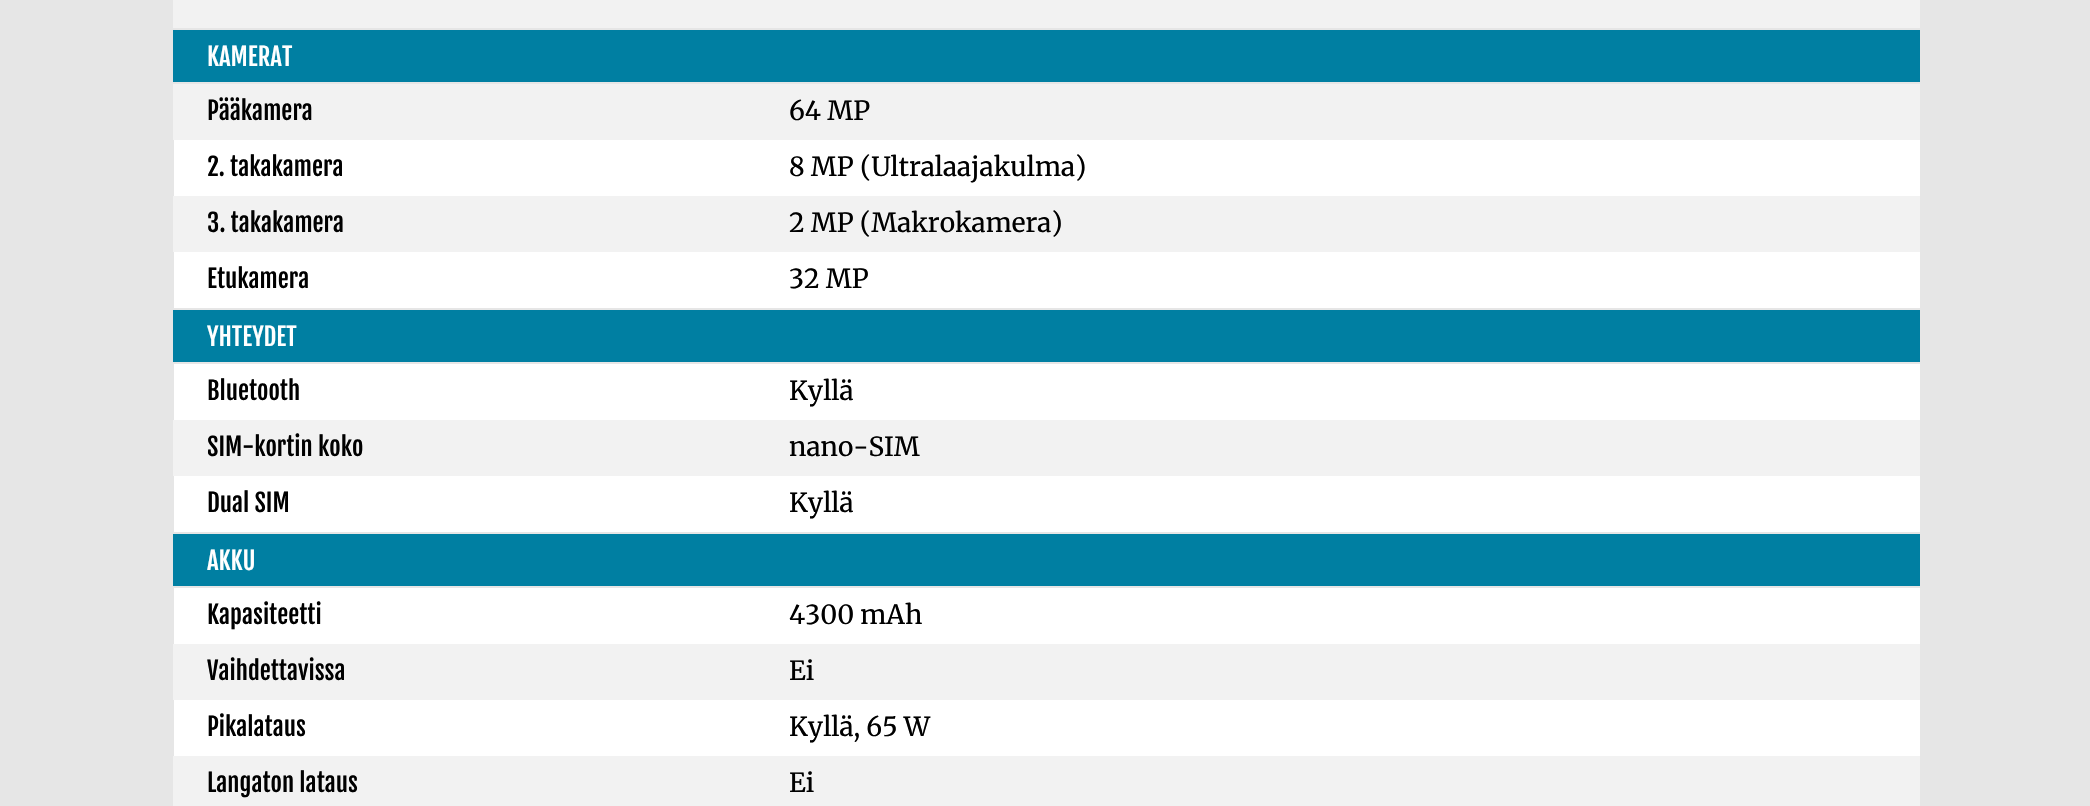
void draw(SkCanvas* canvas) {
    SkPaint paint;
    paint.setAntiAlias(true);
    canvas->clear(0xFFE6E6E6);
    paint.setColor(0xFFFFFFFF);
    canvas->drawRect(SkRect::MakeXYWH(174, 140, 1746, 616), paint);
    paint.setColor(0xFFF2F2F2);
    canvas->drawRect(SkRect::MakeXYWH(173, 0, 1747, 28), paint);
    paint.setColor(0xFF007FA2);
    canvas->drawRect(SkRect::MakeXYWH(173, 30, 1747, 52), paint);
    SkFont font1(fontMgr->matchFamilyStyle("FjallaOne", SkFontStyle::Normal()), 24.5f);
    font1.setSubpixel(true);
    paint.setColor(0xFFFFFFFF);
    canvas->drawString("KAMERAT", 207, 66, font1, paint);
    paint.setColor(0xFFF2F2F2);
    canvas->drawRect(SkRect::MakeXYWH(173, 84, 1747, 56), paint);
    paint.setColor(0xFF000000);
    canvas->drawString("Pääkamera", 207, 120, font1, paint);
    SkFont font2(fontMgr->matchFamilyStyle("Merriweather", SkFontStyle::Normal()), 26.25f);
    font2.setSubpixel(true);
    canvas->drawString("64 MP", 789, 120, font2, paint);
    canvas->drawString("2. takakamera", 207, 176, font1, paint);
    canvas->drawString("8 MP (Ultralaajakulma)", 789, 176, font2, paint);
    paint.setColor(0xFFF2F2F2);
    canvas->drawRect(SkRect::MakeXYWH(173, 196, 1747, 56), paint);
    paint.setColor(0xFF000000);
    canvas->drawString("3. takakamera", 207, 232, font1, paint);
    canvas->drawString("2 MP (Makrokamera)", 789, 232, font2, paint);
    canvas->drawString("Etukamera", 207, 288, font1, paint);
    canvas->drawString("32 MP", 789, 288, font2, paint);
    paint.setColor(0xFF007FA2);
    canvas->drawRect(SkRect::MakeXYWH(173, 310, 1747, 52), paint);
    paint.setColor(0xFFE6E6E6);
    canvas->drawRect(SkRect::MakeXYWH(173, 308, 1747, 2), paint);
    canvas->drawRect(SkRect::MakeXYWH(173, 362, 1747, 2), paint);
    paint.setColor(0xFFFFFFFF);
    canvas->drawString("YHTEYDET", 207, 346, font1, paint);
    paint.setColor(0xFF000000);
    canvas->drawString("Bluetooth", 207, 400, font1, paint);
    canvas->drawString("Kyllä", 789, 400, font2, paint);
    paint.setColor(0xFFF2F2F2);
    canvas->drawRect(SkRect::MakeXYWH(173, 420, 1747, 56), paint);
    paint.setColor(0xFF000000);
    canvas->drawString("SIM-kortin koko", 207, 456, font1, paint);
    canvas->drawString("nano-SIM", 789, 456, font2, paint);
    canvas->drawString("Dual SIM", 207, 512, font1, paint);
    canvas->drawString("Kyllä", 789, 512, font2, paint);
    paint.setColor(0xFF007FA2);
    canvas->drawRect(SkRect::MakeXYWH(173, 534, 1747, 52), paint);
    paint.setColor(0xFFE6E6E6);
    canvas->drawRect(SkRect::MakeXYWH(173, 532, 1747, 2), paint);
    canvas->drawRect(SkRect::MakeXYWH(173, 586, 1747, 2), paint);
    paint.setColor(0xFFFFFFFF);
    canvas->drawString("AKKU", 207, 570, font1, paint);
    paint.setColor(0xFF000000);
    canvas->drawString("Kapasiteetti", 207, 624, font1, paint);
    canvas->drawString("4300 mAh", 789, 624, font2, paint);
    paint.setColor(0xFFF2F2F2);
    canvas->drawRect(SkRect::MakeXYWH(173, 644, 1747, 56), paint);
    paint.setColor(0xFF000000);
    canvas->drawString("Vaihdettavissa", 207, 680, font1, paint);
    canvas->drawString("Ei", 789, 680, font2, paint);
    canvas->drawString("Pikalataus", 207, 736, font1, paint);
    canvas->drawString("Kyllä, 65 W", 789, 736, font2, paint);
    paint.setColor(0xFFF2F2F2);
    canvas->drawRect(SkRect::MakeXYWH(173, 756, 1747, 50), paint);
    paint.setColor(0xFF000000);
    canvas->drawString("Langaton lataus", 207, 792, font1, paint);
    canvas->drawString("Ei", 789, 792, font2, paint);
}
